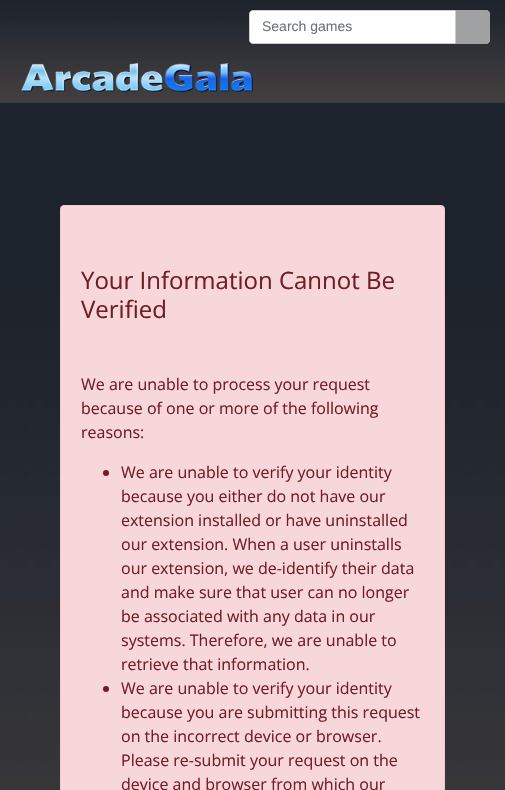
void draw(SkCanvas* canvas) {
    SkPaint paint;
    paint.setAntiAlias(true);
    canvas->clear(0xFFFFFFFF);
    canvas->drawImageRect(SkImages::DeferredFromEncodedData(SkData::MakeFromFileName("img1.png")), SkRect::MakeXYWH(0, 0, 505, 790), SkSamplingOptions());
    paint.setColor(0xFFFFFFFF);
    canvas->drawPath(SkPathBuilder().moveTo(253, 10.5f).lineTo(455.5f, 10.5f).lineTo(455.5f, 43.5f).lineTo(253, 43.5f).cubicTo(251, 43.5f, 249.5f, 42, 249.5f, 40).lineTo(249.5f, 14).cubicTo(249.5f, 12, 251, 10.5f, 253, 10.5f).close().detach(), paint);
    paint.setStyle(SkPaint::kStroke_Style);
    paint.setStrokeWidth(1);
    paint.setColor(0xFFCCCCCC);
    canvas->drawPath(SkPathBuilder().moveTo(253, 10.5f).lineTo(455.5f, 10.5f).lineTo(455.5f, 43.5f).lineTo(253, 43.5f).cubicTo(251, 43.5f, 249.5f, 42, 249.5f, 40).lineTo(249.5f, 14).cubicTo(249.5f, 12, 251, 10.5f, 253, 10.5f).close().detach(), paint);
    SkFont font1(fontMgr->matchFamilyStyle("Liberation Sans", SkFontStyle::Normal()), 14);
    font1.setSubpixel(true);
    paint.setStyle(SkPaint::kFill_Style);
    paint.setColor(0xFF6C757D);
    canvas->drawString("Search games", 262, 31, font1, paint);
    paint.setColor(0xFFA0A1A2);
    canvas->drawPath(SkPathBuilder().moveTo(456, 10).lineTo(486, 10).cubicTo(488, 10, 490, 12, 490, 14).lineTo(490, 40).cubicTo(490, 42, 488, 44, 486, 44).lineTo(456, 44).close().detach(), paint);
    canvas->drawPath(SkPathBuilder(SkPathFillType::kEvenOdd).moveTo(456, 10).lineTo(486, 10).cubicTo(488, 10, 490, 12, 490, 14).lineTo(490, 40).cubicTo(490, 42, 488, 44, 486, 44).lineTo(456, 44).close().moveTo(456, 11).lineTo(486, 11).cubicTo(487.5f, 11, 489, 12.5f, 489, 14).lineTo(489, 40).cubicTo(489, 41.5f, 487.5f, 43, 486, 43).lineTo(456, 43).close().detach(), paint);
    canvas->drawImageRect(SkImages::DeferredFromEncodedData(SkData::MakeFromFileName("img2.png")), SkRect::MakeXYWH(21, 63, 232, 29), SkSamplingOptions());
    paint.setColor(0xFFF8D7DA);
    canvas->drawRoundRect(SkRect::MakeXYWH(60.5f, 205.5f, 384, 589), 3.5f, 3.5f, paint);
    paint.setStyle(SkPaint::kStroke_Style);
    paint.setColor(0xFFF5C6CB);
    canvas->drawRoundRect(SkRect::MakeXYWH(60.5f, 205.5f, 384, 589), 3.5f, 3.5f, paint);
    SkFont font2(fontMgr->matchFamilyStyle("Open Sans", SkFontStyle::Normal()), 24);
    font2.setSubpixel(true);
    paint.setStyle(SkPaint::kFill_Style);
    paint.setColor(0xFF721C24);
    canvas->drawString("Your Information Cannot Be", 81, 289, font2, paint);
    canvas->drawString("Verified", 81, 318, font2, paint);
    SkFont font3(fontMgr->matchFamilyStyle("Open Sans", SkFontStyle::Normal()), 16);
    font3.setSubpixel(true);
    canvas->drawString("We are unable to process your request", 81, 390, font3, paint);
    canvas->drawString("because of one or more of the following", 81, 414, font3, paint);
    canvas->drawString("reasons:", 81, 438, font3, paint);
    canvas->drawCircle(106, 473, 3, paint);
    canvas->drawString("We are unable to verify your identity", 121, 478, font3, paint);
    canvas->drawString("because you either do not have our", 121, 502, font3, paint);
    canvas->drawString("extension installed or have uninstalled", 121, 526, font3, paint);
    canvas->drawString("our extension. When a user uninstalls", 121, 550, font3, paint);
    canvas->drawString("our extension, we de-identify their data", 121, 574, font3, paint);
    canvas->drawString("and make sure that user can no longer", 121, 598, font3, paint);
    canvas->drawString("be associated with any data in our", 121, 622, font3, paint);
    canvas->drawString("systems. Therefore, we are unable to", 121, 646, font3, paint);
    canvas->drawString("retrieve that information.", 121, 670, font3, paint);
    canvas->drawCircle(106, 689, 3, paint);
    canvas->drawString("We are unable to verify your identity", 121, 694, font3, paint);
    canvas->drawString("because you are submitting this request", 121, 718, font3, paint);
    canvas->drawString("on the incorrect device or browser.", 121, 742, font3, paint);
    canvas->drawString("Please re-submit your request on the", 121, 766, font3, paint);
    canvas->drawString("device and browser from which our", 121, 790, font3, paint);
}
